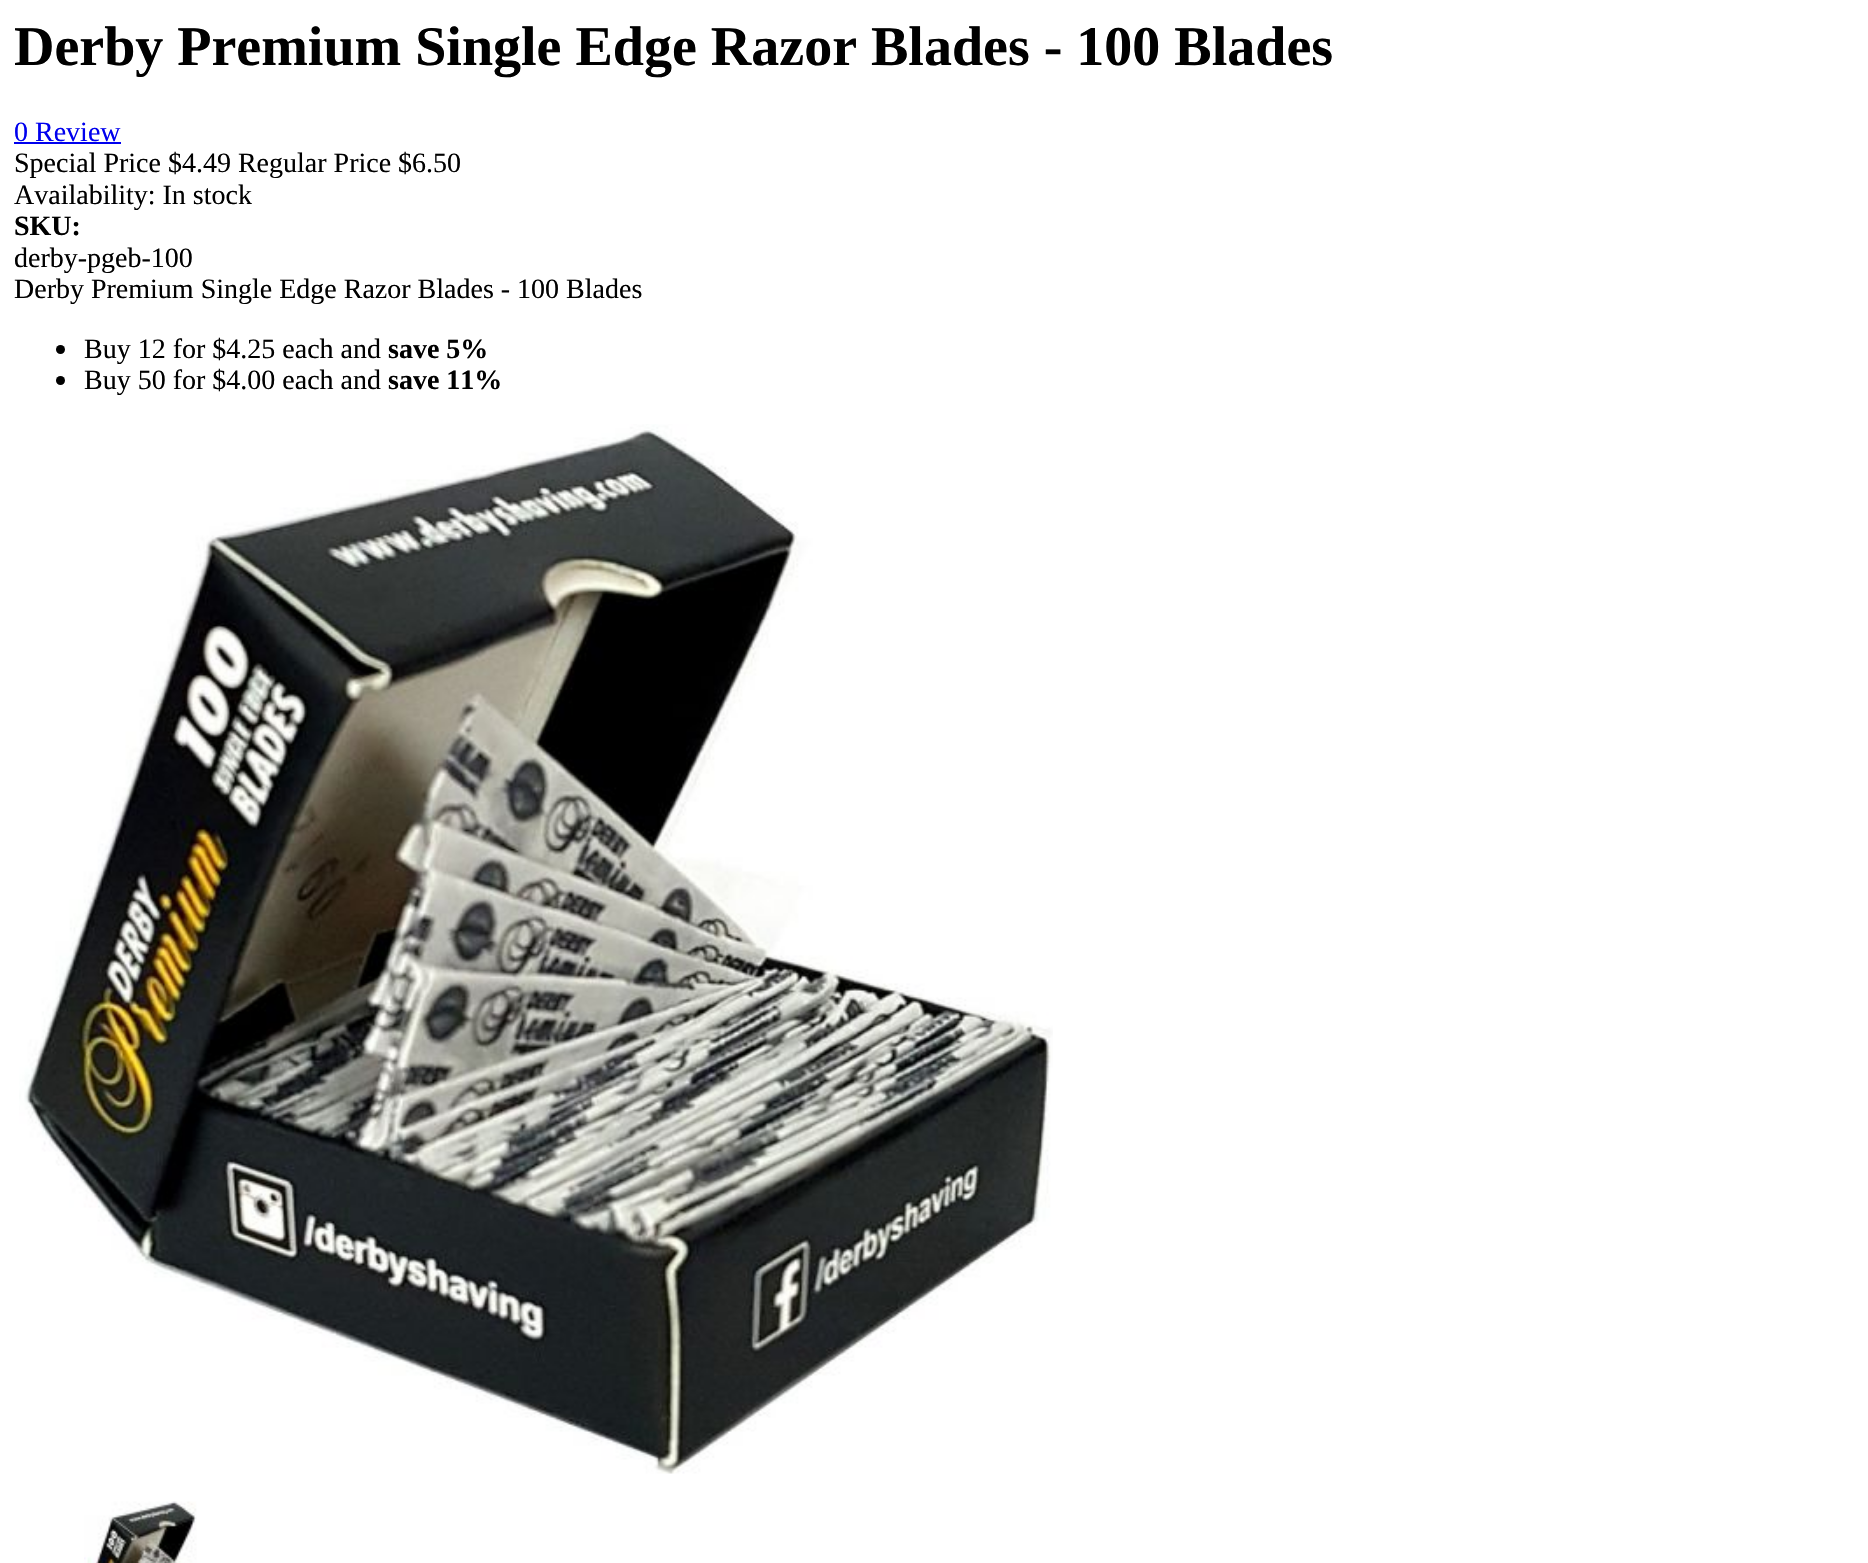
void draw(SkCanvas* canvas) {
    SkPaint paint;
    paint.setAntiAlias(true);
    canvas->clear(0xFFFFFFFF);
    SkFont font1(fontMgr->matchFamilyStyle("Liberation Serif", SkFontStyle::Bold()), 56);
    font1.setSubpixel(true);
    paint.setColor(0xFF000000);
    canvas->drawString("Derby Premium Single Edge Razor Blades - 100 Blades", 14, 65, font1, paint);
    SkFont font2(fontMgr->matchFamilyStyle("Liberation Serif", SkFontStyle::Normal()), 28);
    font2.setSubpixel(true);
    paint.setColor(0xFF0000EE);
    canvas->drawString("0 Review", 14, 141, font2, paint);
    canvas->drawRect(SkRect::MakeXYWH(14, 142, 107, 2), paint);
    paint.setColor(0xFF000000);
    canvas->drawString("Special Price $4.49 Regular Price $6.50", 14, 172, font2, paint);
    canvas->drawString("Availability: In stock", 14, 204, font2, paint);
    SkFont font3(fontMgr->matchFamilyStyle("Liberation Serif", SkFontStyle::Bold()), 28);
    font3.setSubpixel(true);
    canvas->drawString("SKU:", 14, 235, font3, paint);
    canvas->drawString("derby-pgeb-100", 14, 267, font2, paint);
    canvas->drawString("Derby Premium Single Edge Razor Blades - 100 Blades", 14, 298, font2, paint);
    canvas->drawCircle(60.5f, 349.5f, 4.5f, paint);
    canvas->drawString("Buy 12 for $4.25 each and", 84, 358, font2, paint);
    canvas->drawString("save 5%", 388, 358, font3, paint);
    canvas->drawCircle(60.5f, 380.5f, 4.5f, paint);
    canvas->drawString("Buy 50 for $4.00 each and", 84, 389, font2, paint);
    canvas->drawString("save 11%", 388, 389, font3, paint);
    canvas->drawImageRect(SkImages::DeferredFromEncodedData(SkData::MakeFromFileName("img1.png")), SkRect::MakeXYWH(19, 424, 1034, 1050), SkSamplingOptions());
    canvas->drawImageRect(SkImages::DeferredFromEncodedData(SkData::MakeFromFileName("img2.png")), SkRect::MakeXYWH(84, 1501, 113, 62), SkSamplingOptions());
}
